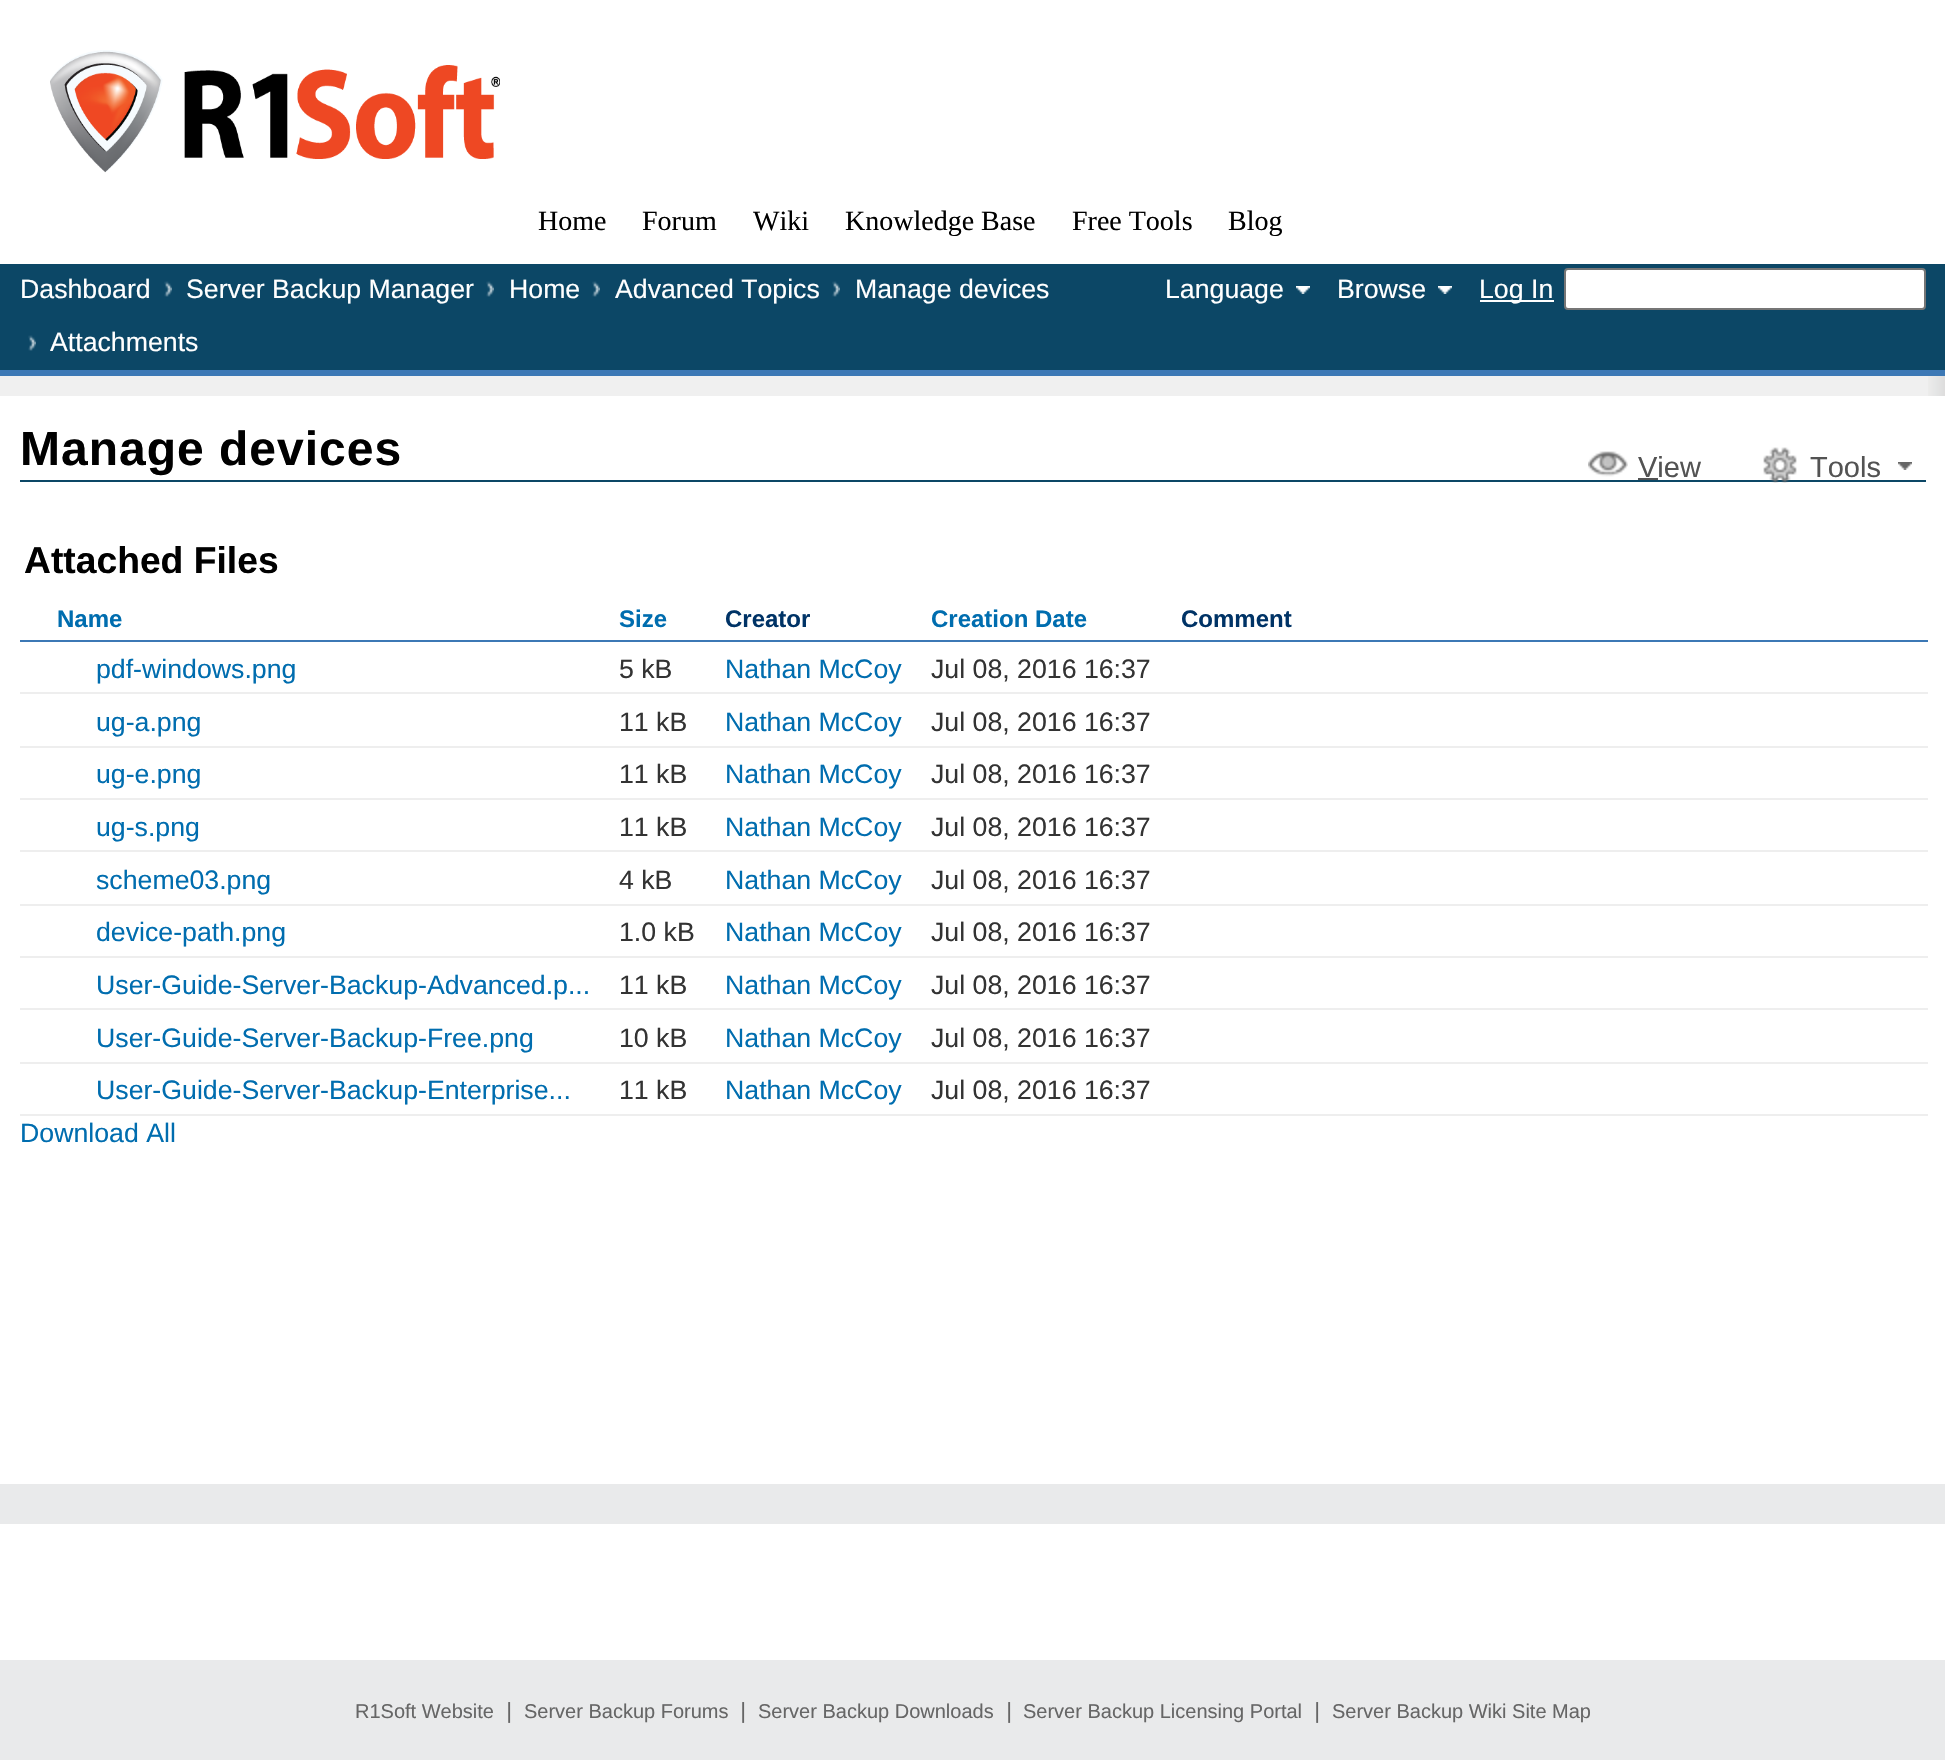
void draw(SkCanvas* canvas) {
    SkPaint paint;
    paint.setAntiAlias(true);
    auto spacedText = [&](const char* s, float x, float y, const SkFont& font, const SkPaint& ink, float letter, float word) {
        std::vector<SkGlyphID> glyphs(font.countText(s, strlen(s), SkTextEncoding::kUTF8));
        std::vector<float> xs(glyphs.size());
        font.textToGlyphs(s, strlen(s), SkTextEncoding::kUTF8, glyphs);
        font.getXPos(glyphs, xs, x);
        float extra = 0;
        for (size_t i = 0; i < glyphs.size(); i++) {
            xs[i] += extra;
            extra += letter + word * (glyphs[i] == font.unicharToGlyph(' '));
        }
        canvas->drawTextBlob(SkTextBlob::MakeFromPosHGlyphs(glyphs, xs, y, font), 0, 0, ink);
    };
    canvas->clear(0xFFFFFFFF);
    canvas->drawImageRect(SkImages::DeferredFromEncodedData(SkData::MakeFromFileName("img1.png")), SkRect::MakeXYWH(50, 50, 450, 123), SkSamplingOptions());
    SkFont font1(fontMgr->matchFamilyStyle("Liberation Serif", SkFontStyle::Normal()), 28);
    font1.setSubpixel(true);
    paint.setColor(0xFF000000);
    canvas->drawString("Home", 538, 230, font1, paint);
    canvas->drawString("Forum", 642, 230, font1, paint);
    canvas->drawString("Wiki", 753, 230, font1, paint);
    canvas->drawString("Knowledge Base", 845, 230, font1, paint);
    canvas->drawString("Free Tools", 1072, 230, font1, paint);
    canvas->drawString("Blog", 1228, 230, font1, paint);
    paint.setColor(0xFFE9EAEB);
    canvas->drawRect(SkRect::MakeXYWH(0, 1484, 1945, 40), paint);
    paint.setColor(0xFF0C4766);
    canvas->drawRect(SkRect::MakeXYWH(0, 264, 1945, 106), paint);
    paint.setColor(0xFF3C78B5);
    canvas->drawRect(SkRect::MakeXYWH(0, 370, 1945, 6), paint);
    SkFont font2(fontMgr->matchFamilyStyle("Liberation Sans", SkFontStyle::Normal()), 26.7f);
    font2.setSubpixel(true);
    paint.setColor(0xFFFFFFFF);
    canvas->drawString("Dashboard", 20, 298, font2, paint);
    canvas->drawImageRect(SkImages::DeferredFromEncodedData(SkData::MakeFromFileName("img2.png")), SkRect::MakeXYWH(164, 281, 8, 16), SkSamplingOptions());
    canvas->drawString("Server Backup Manager", 186, 298, font2, paint);
    canvas->drawImageRect(SkImages::DeferredFromEncodedData(SkData::MakeFromFileName("img2.png")), SkRect::MakeXYWH(486, 281, 8, 16), SkSamplingOptions());
    canvas->drawString("Home", 509, 298, font2, paint);
    canvas->drawImageRect(SkImages::DeferredFromEncodedData(SkData::MakeFromFileName("img2.png")), SkRect::MakeXYWH(592, 281, 8, 16), SkSamplingOptions());
    canvas->drawString("Advanced Topics", 615, 298, font2, paint);
    canvas->drawImageRect(SkImages::DeferredFromEncodedData(SkData::MakeFromFileName("img2.png")), SkRect::MakeXYWH(832, 281, 8, 16), SkSamplingOptions());
    canvas->drawString("Manage devices", 855, 298, font2, paint);
    canvas->drawImageRect(SkImages::DeferredFromEncodedData(SkData::MakeFromFileName("img2.png")), SkRect::MakeXYWH(28, 335, 8, 16), SkSamplingOptions());
    canvas->drawString("Attachments", 50, 351, font2, paint);
    canvas->drawImageRect(SkImages::DeferredFromEncodedData(SkData::MakeFromFileName("img3.png")), SkRect::MakeXYWH(1296, 286, 14, 8), SkSamplingOptions());
    canvas->drawString("Language", 1165, 298, font2, paint);
    canvas->drawImageRect(SkImages::DeferredFromEncodedData(SkData::MakeFromFileName("img3.png")), SkRect::MakeXYWH(1438, 286, 14, 8), SkSamplingOptions());
    canvas->drawString("Browse", 1337, 298, font2, paint);
    canvas->drawRect(SkRect::MakeXYWH(1480, 300, 74, 2), paint);
    canvas->drawString("Log In", 1479, 298, font2, paint);
    canvas->drawRoundRect(SkRect::MakeXYWH(1565, 269, 360, 40), 3, 3, paint);
    paint.setStyle(SkPaint::kStroke_Style);
    paint.setStrokeWidth(2);
    paint.setColor(0xFF767676);
    canvas->drawRoundRect(SkRect::MakeXYWH(1565, 269, 360, 40), 3, 3, paint);
    paint.setStyle(SkPaint::kFill_Style);
    paint.setColor(0xFFF0F0F0);
    canvas->drawRect(SkRect::MakeXYWH(0, 376, 1928, 20), paint);
    canvas->drawImageRect(SkImages::DeferredFromEncodedData(SkData::MakeFromFileName("img4.png")), SkRect::MakeXYWH(1928, 376, 17, 20), SkSamplingOptions());
    paint.setColor(0xFF0C4766);
    canvas->drawRect(SkRect::MakeXYWH(20, 480, 1906, 2), paint);
    SkFont font3(fontMgr->matchFamilyStyle("Liberation Sans", SkFontStyle::Bold()), 48);
    font3.setSubpixel(true);
    paint.setColor(0xFF000000);
    spacedText("Manage devices", 20, 465, font3, paint, 1, 0);
    canvas->drawImageRect(SkImages::DeferredFromEncodedData(SkData::MakeFromFileName("img5.png")), SkRect::MakeXYWH(1588, 451, 40, 26), SkSamplingOptions());
    SkFont font4(fontMgr->matchFamilyStyle("Liberation Sans", SkFontStyle::Normal()), 29);
    font4.setSubpixel(true);
    paint.setColor(0xFF535353);
    canvas->drawString("View", 1638, 477, font4, paint);
    canvas->drawRect(SkRect::MakeXYWH(1638, 478, 20, 2), paint);
    canvas->drawImageRect(SkImages::DeferredFromEncodedData(SkData::MakeFromFileName("img6.png")), SkRect::MakeXYWH(1898, 462, 14, 8), SkSamplingOptions());
    canvas->drawImageRect(SkImages::DeferredFromEncodedData(SkData::MakeFromFileName("img7.png")), SkRect::MakeXYWH(1763, 447, 34, 36), SkSamplingOptions());
    canvas->drawString("Tools", 1810, 477, font4, paint);
    SkFont font5(fontMgr->matchFamilyStyle("Liberation Sans", SkFontStyle::Bold()), 37.25f);
    font5.setSubpixel(true);
    paint.setColor(0xFF000000);
    canvas->drawString("Attached Files", 24, 573, font5, paint);
    SkFont font6(fontMgr->matchFamilyStyle("Liberation Sans", SkFontStyle::Bold()), 24);
    font6.setSubpixel(true);
    paint.setColor(0xFF006DAF);
    canvas->drawString("Name", 57, 627, font6, paint);
    canvas->drawString("Size", 619, 627, font6, paint);
    paint.setColor(0xFF003366);
    canvas->drawString("Creator", 725, 627, font6, paint);
    paint.setColor(0xFF006DAF);
    canvas->drawString("Creation Date", 931, 627, font6, paint);
    paint.setColor(0xFF003366);
    canvas->drawString("Comment", 1181, 627, font6, paint);
    paint.setColor(0xFF3C78B5);
    canvas->drawRect(SkRect::MakeXYWH(20, 640, 1908, 2), paint);
    paint.setColor(0xFF006DAF);
    canvas->drawString("pdf-windows.png", 96, 678, font2, paint);
    paint.setColor(0xFF333333);
    canvas->drawString("5 kB", 619, 678, font2, paint);
    paint.setColor(0xFF006DAF);
    canvas->drawString("Nathan McCoy", 725, 678, font2, paint);
    paint.setColor(0xFF333333);
    canvas->drawString("Jul 08, 2016 16:37", 931, 678, font2, paint);
    paint.setColor(0xFFEEEEEE);
    canvas->drawRect(SkRect::MakeXYWH(20, 692, 1908, 2), paint);
    paint.setColor(0xFF006DAF);
    canvas->drawString("ug-a.png", 96, 731, font2, paint);
    paint.setColor(0xFF333333);
    canvas->drawString("11 kB", 619, 731, font2, paint);
    paint.setColor(0xFF006DAF);
    canvas->drawString("Nathan McCoy", 725, 731, font2, paint);
    paint.setColor(0xFF333333);
    canvas->drawString("Jul 08, 2016 16:37", 931, 731, font2, paint);
    paint.setColor(0xFFEEEEEE);
    canvas->drawRect(SkRect::MakeXYWH(20, 746, 1908, 2), paint);
    paint.setColor(0xFF006DAF);
    canvas->drawString("ug-e.png", 96, 783, font2, paint);
    paint.setColor(0xFF333333);
    canvas->drawString("11 kB", 619, 783, font2, paint);
    paint.setColor(0xFF006DAF);
    canvas->drawString("Nathan McCoy", 725, 783, font2, paint);
    paint.setColor(0xFF333333);
    canvas->drawString("Jul 08, 2016 16:37", 931, 783, font2, paint);
    paint.setColor(0xFFEEEEEE);
    canvas->drawRect(SkRect::MakeXYWH(20, 798, 1908, 2), paint);
    paint.setColor(0xFF006DAF);
    canvas->drawString("ug-s.png", 96, 836, font2, paint);
    paint.setColor(0xFF333333);
    canvas->drawString("11 kB", 619, 836, font2, paint);
    paint.setColor(0xFF006DAF);
    canvas->drawString("Nathan McCoy", 725, 836, font2, paint);
    paint.setColor(0xFF333333);
    canvas->drawString("Jul 08, 2016 16:37", 931, 836, font2, paint);
    paint.setColor(0xFFEEEEEE);
    canvas->drawRect(SkRect::MakeXYWH(20, 850, 1908, 2), paint);
    paint.setColor(0xFF006DAF);
    canvas->drawString("scheme03.png", 96, 889, font2, paint);
    paint.setColor(0xFF333333);
    canvas->drawString("4 kB", 619, 889, font2, paint);
    paint.setColor(0xFF006DAF);
    canvas->drawString("Nathan McCoy", 725, 889, font2, paint);
    paint.setColor(0xFF333333);
    canvas->drawString("Jul 08, 2016 16:37", 931, 889, font2, paint);
    paint.setColor(0xFFEEEEEE);
    canvas->drawRect(SkRect::MakeXYWH(20, 904, 1908, 2), paint);
    paint.setColor(0xFF006DAF);
    canvas->drawString("device-path.png", 96, 941, font2, paint);
    paint.setColor(0xFF333333);
    canvas->drawString("1.0 kB", 619, 941, font2, paint);
    paint.setColor(0xFF006DAF);
    canvas->drawString("Nathan McCoy", 725, 941, font2, paint);
    paint.setColor(0xFF333333);
    canvas->drawString("Jul 08, 2016 16:37", 931, 941, font2, paint);
    paint.setColor(0xFFEEEEEE);
    canvas->drawRect(SkRect::MakeXYWH(20, 956, 1908, 2), paint);
    paint.setColor(0xFF006DAF);
    canvas->drawString("User-Guide-Server-Backup-Advanced.p...", 96, 994, font2, paint);
    paint.setColor(0xFF333333);
    canvas->drawString("11 kB", 619, 994, font2, paint);
    paint.setColor(0xFF006DAF);
    canvas->drawString("Nathan McCoy", 725, 994, font2, paint);
    paint.setColor(0xFF333333);
    canvas->drawString("Jul 08, 2016 16:37", 931, 994, font2, paint);
    paint.setColor(0xFFEEEEEE);
    canvas->drawRect(SkRect::MakeXYWH(20, 1008, 1908, 2), paint);
    paint.setColor(0xFF006DAF);
    canvas->drawString("User-Guide-Server-Backup-Free.png", 96, 1047, font2, paint);
    paint.setColor(0xFF333333);
    canvas->drawString("10 kB", 619, 1047, font2, paint);
    paint.setColor(0xFF006DAF);
    canvas->drawString("Nathan McCoy", 725, 1047, font2, paint);
    paint.setColor(0xFF333333);
    canvas->drawString("Jul 08, 2016 16:37", 931, 1047, font2, paint);
    paint.setColor(0xFFEEEEEE);
    canvas->drawRect(SkRect::MakeXYWH(20, 1062, 1908, 2), paint);
    paint.setColor(0xFF006DAF);
    canvas->drawString("User-Guide-Server-Backup-Enterprise...", 96, 1099, font2, paint);
    paint.setColor(0xFF333333);
    canvas->drawString("11 kB", 619, 1099, font2, paint);
    paint.setColor(0xFF006DAF);
    canvas->drawString("Nathan McCoy", 725, 1099, font2, paint);
    paint.setColor(0xFF333333);
    canvas->drawString("Jul 08, 2016 16:37", 931, 1099, font2, paint);
    paint.setColor(0xFFEEEEEE);
    canvas->drawRect(SkRect::MakeXYWH(20, 1114, 1908, 2), paint);
    paint.setColor(0xFF006DAF);
    canvas->drawString("Download All", 20, 1142, font2, paint);
    paint.setColor(0xFFE9EAEB);
    canvas->drawRect(SkRect::MakeXYWH(0, 1660, 1945, 100), paint);
    SkFont font7(fontMgr->matchFamilyStyle("Liberation Sans", SkFontStyle::Normal()), 20);
    font7.setSubpixel(true);
    paint.setColor(0xFF666666);
    canvas->drawString("R1Soft Website", 355, 1718, font7, paint);
    SkFont font8(fontMgr->matchFamilyStyle("Liberation Sans", SkFontStyle::Italic()), 22);
    font8.setSubpixel(true);
    canvas->drawString("|", 506, 1718, font8, paint);
    canvas->drawString("Server Backup Forums", 524, 1718, font7, paint);
    canvas->drawString("|", 740, 1718, font8, paint);
    canvas->drawString("Server Backup Downloads", 758, 1718, font7, paint);
    canvas->drawString("|", 1006, 1718, font8, paint);
    canvas->drawString("Server Backup Licensing Portal", 1023, 1718, font7, paint);
    canvas->drawString("|", 1314, 1718, font8, paint);
    canvas->drawString("Server Backup Wiki Site Map", 1332, 1718, font7, paint);
}
